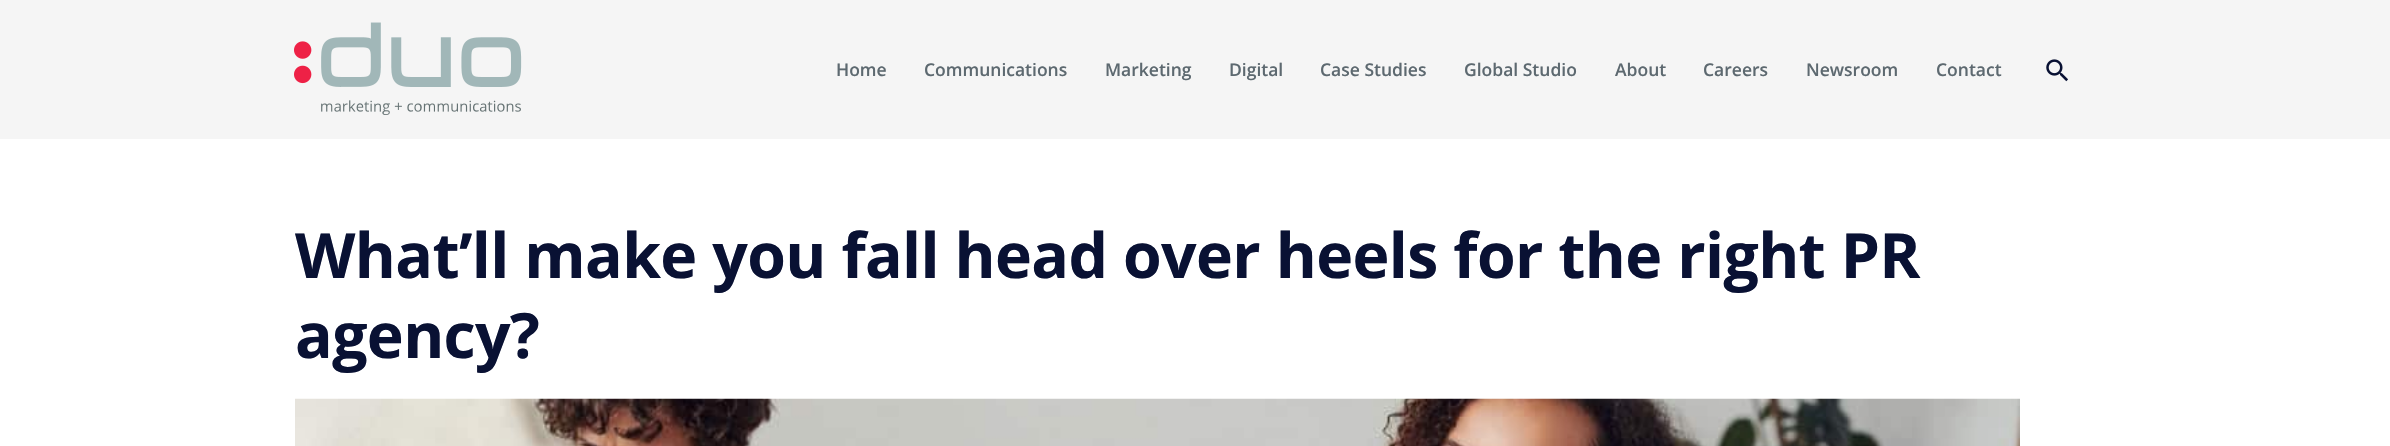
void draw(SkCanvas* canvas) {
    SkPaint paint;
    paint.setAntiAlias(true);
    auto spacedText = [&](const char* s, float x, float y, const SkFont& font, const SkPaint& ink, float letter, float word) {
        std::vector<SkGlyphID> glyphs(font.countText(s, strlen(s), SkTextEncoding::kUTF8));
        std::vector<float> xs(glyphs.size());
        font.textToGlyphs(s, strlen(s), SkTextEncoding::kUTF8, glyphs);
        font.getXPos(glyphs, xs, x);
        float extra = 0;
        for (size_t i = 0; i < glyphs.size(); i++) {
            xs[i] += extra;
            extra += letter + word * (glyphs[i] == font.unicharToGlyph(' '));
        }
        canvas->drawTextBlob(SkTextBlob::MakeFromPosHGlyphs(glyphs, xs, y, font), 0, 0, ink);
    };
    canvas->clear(0xFFFFFFFF);
    paint.setColor(0xFFF5F5F5);
    canvas->drawRect(SkRect::MakeXYWH(0, 0, 2390, 139), paint);
    canvas->drawImageRect(SkImages::DeferredFromEncodedData(SkData::MakeFromFileName("img1.png")), SkRect::MakeXYWH(294, 22, 228, 93), SkSamplingOptions());
    SkFont font1(fontMgr->matchFamilyStyle("Open Sans", SkFontStyle(600, SkFontStyle::kNormal_Width, SkFontStyle::kUpright_Slant)), 17.5f);
    font1.setSubpixel(true);
    paint.setColor(0xFF5D6970);
    canvas->drawString("Home", 836, 76, font1, paint);
    canvas->drawString("Communications", 924, 76, font1, paint);
    canvas->drawString("Marketing", 1105, 76, font1, paint);
    canvas->drawString("Digital", 1229, 76, font1, paint);
    canvas->drawString("Case Studies", 1320, 76, font1, paint);
    canvas->drawString("Global Studio", 1464, 76, font1, paint);
    canvas->drawString("About", 1615, 76, font1, paint);
    canvas->drawString("Careers", 1703, 76, font1, paint);
    canvas->drawString("Newsroom", 1806, 76, font1, paint);
    canvas->drawString("Contact", 1936, 76, font1, paint);
    canvas->drawImageRect(SkImages::DeferredFromEncodedData(SkData::MakeFromFileName("img2.png")), SkRect::MakeXYWH(2046, 59, 22, 23), SkSamplingOptions());
    SkFont font2(fontMgr->matchFamilyStyle("Open Sans", SkFontStyle::Bold()), 62.5f);
    font2.setSubpixel(true);
    paint.setColor(0xFF091133);
    spacedText("What’ll make you fall head over heels for the right PR", 295, 278, font2, paint, -0.62f, 0);
    spacedText("agency?", 295, 358, font2, paint, -0.62f, 0);
    canvas->drawImageRect(SkImages::DeferredFromEncodedData(SkData::MakeFromFileName("img3.png")), SkRect::MakeXYWH(295, 398, 1725, 48), SkSamplingOptions());
}
